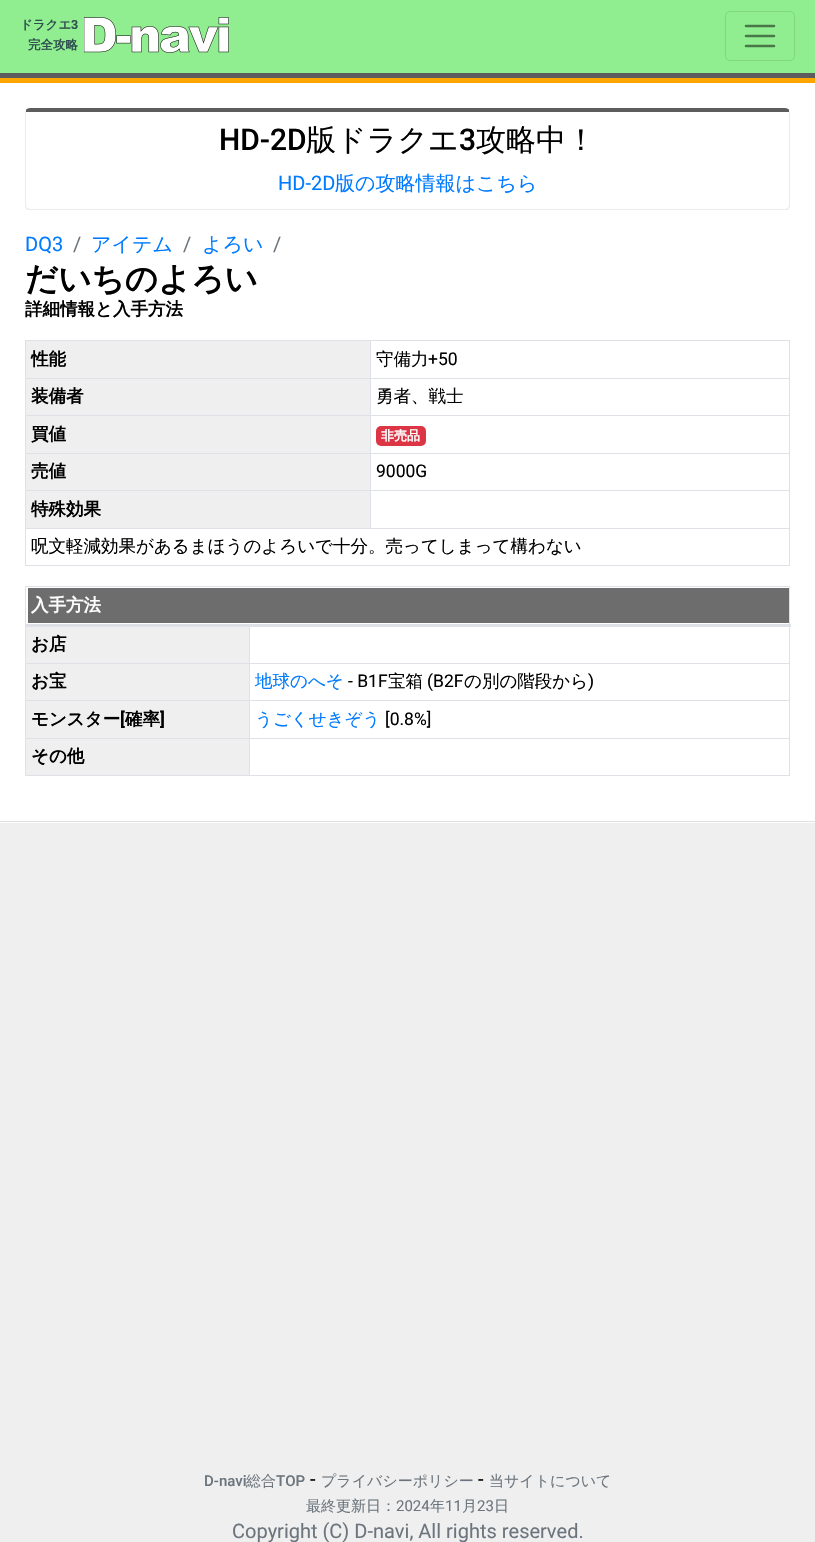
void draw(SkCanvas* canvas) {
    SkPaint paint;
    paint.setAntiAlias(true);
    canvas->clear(0xFFEFEFEF);
    paint.setColor(0xFF90EE90);
    canvas->drawRect(SkRect::MakeXYWH(0, 0, 815, 73), paint);
    paint.setColor(0xFF5D5D5D);
    canvas->drawRect(SkRect::MakeXYWH(0, 73, 815, 5), paint);
    SkFont font1(fontMgr->matchFamilyStyle("WenQuanYi Zen Hei", SkFontStyle::Bold()), 12.5f);
    font1.setSubpixel(true);
    paint.setColor(0xFF2F4F4F);
    canvas->drawString("ドラクエ", 20, 29, font1, paint);
    SkFont font2(fontMgr->matchFamilyStyle("Roboto", SkFontStyle::Bold()), 12.5f);
    font2.setSubpixel(true);
    canvas->drawString("3", 71, 29, font2, paint);
    canvas->drawString("完全攻略", 28, 49, font1, paint);
    canvas->drawImageRect(SkImages::DeferredFromEncodedData(SkData::MakeFromFileName("img1.png")), SkRect::MakeXYWH(84, 17, 145, 36), SkSamplingOptions());
    paint.setStyle(SkPaint::kStroke_Style);
    paint.setStrokeWidth(1);
    paint.setColor(0xFF82D682);
    canvas->drawRoundRect(SkRect::MakeXYWH(725.5f, 11.5f, 69, 49), 4.5f, 4.5f, paint);
    paint.setStrokeWidth(2.5f);
    paint.setStrokeCap(SkPaint::kRound_Cap);
    paint.setColor(0xFF487748);
    canvas->drawPath(SkPathBuilder().moveTo(746, 26).lineTo(774, 26).moveTo(746, 36).lineTo(774, 36).moveTo(746, 46).lineTo(774, 46).detach(), paint);
    paint.setStyle(SkPaint::kFill_Style);
    paint.setColor(0xFFFFFFFF);
    canvas->drawRect(SkRect::MakeXYWH(0, 83, 815, 740), paint);
    paint.setColor(0xFFFFA500);
    canvas->drawRect(SkRect::MakeXYWH(0, 78, 815, 5), paint);
    paint.setColor(0xFFDFDFDF);
    canvas->drawRect(SkRect::MakeXYWH(0, 821, 815, 1), paint);
    paint.setColor(0xFF5D5D5D);
    canvas->drawPath(SkPathBuilder().moveTo(30, 108).cubicTo(28, 108, 26, 109, 26, 110).lineTo(26, 112).lineTo(789, 112).lineTo(789, 110).cubicTo(789, 109, 787, 108, 785, 108).close().detach(), paint);
    paint.setColor(0xFFE9ECEF);
    canvas->drawPath(SkPathBuilder().moveTo(790, 205).lineTo(790, 112).lineTo(789, 110).lineTo(789, 112).lineTo(789, 205).lineTo(788, 208).lineTo(789, 209).cubicTo(790, 208, 790, 206, 790, 205).close().detach(), paint);
    canvas->drawPath(SkPathBuilder().moveTo(30, 210).lineTo(785, 210).cubicTo(786, 210, 788, 210, 789, 209).lineTo(788, 208).cubicTo(787, 208, 786, 209, 785, 209).lineTo(30, 209).cubicTo(29, 209, 28, 208, 27, 208).lineTo(26, 209).cubicTo(27, 210, 28, 210, 30, 210).close().detach(), paint);
    canvas->drawPath(SkPathBuilder().moveTo(25, 112).lineTo(25, 206).lineTo(26, 209).lineTo(27, 208).lineTo(26, 205).lineTo(26, 112).lineTo(26, 110).close().detach(), paint);
    SkFont font3(fontMgr->matchFamilyStyle("Roboto", SkFontStyle(500, SkFontStyle::kNormal_Width, SkFontStyle::kUpright_Slant)), 30);
    font3.setSubpixel(true);
    paint.setColor(0xFF000000);
    canvas->drawString("HD-2D", 219, 150, font3, paint);
    SkFont font4(fontMgr->matchFamilyStyle("WenQuanYi Zen Hei", SkFontStyle(500, SkFontStyle::kNormal_Width, SkFontStyle::kUpright_Slant)), 30);
    font4.setSubpixel(true);
    canvas->drawString("版ドラクエ", 306, 150, font4, paint);
    canvas->drawString("3", 459, 150, font3, paint);
    canvas->drawString("攻略中！", 476, 150, font4, paint);
    SkFont font5(fontMgr->matchFamilyStyle("Roboto", SkFontStyle::Normal()), 20);
    font5.setSubpixel(true);
    paint.setColor(0xFF007BFF);
    canvas->drawString("HD-2D", 278, 190, font5, paint);
    SkFont font6(fontMgr->matchFamilyStyle("WenQuanYi Zen Hei", SkFontStyle(500, SkFontStyle::kNormal_Width, SkFontStyle::kUpright_Slant)), 20);
    font6.setSubpixel(true);
    canvas->drawString("版の攻略情報はこちら", 335, 190, font6, paint);
    canvas->drawString("DQ3", 25, 251, font5, paint);
    paint.setColor(0xFF6C757D);
    canvas->drawString("/", 73, 251, font5, paint);
    paint.setColor(0xFF007BFF);
    canvas->drawString("アイテム", 91, 251, font6, paint);
    paint.setColor(0xFF6C757D);
    canvas->drawString("/", 183, 251, font5, paint);
    paint.setColor(0xFF007BFF);
    canvas->drawString("よろい", 202, 251, font6, paint);
    paint.setColor(0xFF6C757D);
    canvas->drawString("/", 273, 251, font5, paint);
    SkFont font7(fontMgr->matchFamilyStyle("WenQuanYi Zen Hei", SkFontStyle::Bold()), 32.5f);
    font7.setSubpixel(true);
    paint.setColor(0xFF000000);
    canvas->drawString("だいちのよろい", 25, 290, font7, paint);
    SkFont font8(fontMgr->matchFamilyStyle("WenQuanYi Zen Hei", SkFontStyle::Bold()), 17.5f);
    font8.setSubpixel(true);
    canvas->drawString("詳細情報と入手方法", 25, 315, font8, paint);
    paint.setColor(0xFFDEE2E6);
    canvas->drawRect(SkRect::MakeXYWH(25, 340, 765, 1), paint);
    canvas->drawRect(SkRect::MakeXYWH(789, 340, 1, 226), paint);
    canvas->drawRect(SkRect::MakeXYWH(25, 565, 765, 1), paint);
    canvas->drawRect(SkRect::MakeXYWH(25, 340, 1, 226), paint);
    paint.setColor(0xFFEFEFEF);
    canvas->drawRect(SkRect::MakeXYWH(26, 341, 344, 37), paint);
    paint.setColor(0xFF000000);
    canvas->drawString("性能", 31, 365, font8, paint);
    paint.setColor(0xFFDEE2E6);
    canvas->drawRect(SkRect::MakeXYWH(370, 378, 420, 1), paint);
    canvas->drawRect(SkRect::MakeXYWH(370, 415, 420, 1), paint);
    canvas->drawRect(SkRect::MakeXYWH(370, 453, 420, 1), paint);
    canvas->drawRect(SkRect::MakeXYWH(370, 490, 420, 1), paint);
    canvas->drawRect(SkRect::MakeXYWH(25, 528, 765, 1), paint);
    canvas->drawRect(SkRect::MakeXYWH(370, 490, 1, 39), paint);
    canvas->drawRect(SkRect::MakeXYWH(25, 490, 346, 1), paint);
    canvas->drawRect(SkRect::MakeXYWH(370, 453, 1, 38), paint);
    canvas->drawRect(SkRect::MakeXYWH(25, 453, 346, 1), paint);
    canvas->drawRect(SkRect::MakeXYWH(370, 415, 1, 39), paint);
    canvas->drawRect(SkRect::MakeXYWH(25, 415, 346, 1), paint);
    canvas->drawRect(SkRect::MakeXYWH(370, 378, 1, 38), paint);
    canvas->drawRect(SkRect::MakeXYWH(25, 378, 346, 1), paint);
    canvas->drawRect(SkRect::MakeXYWH(370, 340, 1, 39), paint);
    SkFont font9(fontMgr->matchFamilyStyle("WenQuanYi Zen Hei", SkFontStyle(500, SkFontStyle::kNormal_Width, SkFontStyle::kUpright_Slant)), 17.5f);
    font9.setSubpixel(true);
    paint.setColor(0xFF000000);
    canvas->drawString("守備力", 376, 365, font9, paint);
    SkFont font10(fontMgr->matchFamilyStyle("Roboto", SkFontStyle::Normal()), 17.5f);
    font10.setSubpixel(true);
    canvas->drawString("+50", 428, 365, font10, paint);
    paint.setColor(0xFFEFEFEF);
    canvas->drawRect(SkRect::MakeXYWH(26, 379, 344, 36), paint);
    paint.setColor(0xFF000000);
    canvas->drawString("装備者", 31, 402, font8, paint);
    canvas->drawString("勇者、戦士", 376, 402, font9, paint);
    paint.setColor(0xFFEFEFEF);
    canvas->drawRect(SkRect::MakeXYWH(26, 416, 344, 37), paint);
    paint.setColor(0xFF000000);
    canvas->drawString("買値", 31, 440, font8, paint);
    paint.setColor(0xFFDC3545);
    canvas->drawRoundRect(SkRect::MakeXYWH(376, 426, 50, 20), 5, 5, paint);
    SkFont font11(fontMgr->matchFamilyStyle("WenQuanYi Zen Hei", SkFontStyle::Bold()), 13);
    font11.setSubpixel(true);
    paint.setColor(0xFFFFFFFF);
    canvas->drawString("非売品", 381, 440, font11, paint);
    paint.setColor(0xFFEFEFEF);
    canvas->drawRect(SkRect::MakeXYWH(26, 454, 344, 36), paint);
    paint.setColor(0xFF000000);
    canvas->drawString("売値", 31, 477, font8, paint);
    canvas->drawString("9000G", 376, 477, font10, paint);
    paint.setColor(0xFFEFEFEF);
    canvas->drawRect(SkRect::MakeXYWH(26, 491, 344, 37), paint);
    paint.setColor(0xFF000000);
    canvas->drawString("特殊効果", 31, 515, font8, paint);
    canvas->drawString("呪文軽減効果があるまほうのよろいで十分。売ってしまって構わない", 31, 552, font9, paint);
    paint.setColor(0xFFDEE2E6);
    canvas->drawRect(SkRect::MakeXYWH(25, 586, 765, 1), paint);
    canvas->drawRect(SkRect::MakeXYWH(789, 586, 1, 190), paint);
    canvas->drawRect(SkRect::MakeXYWH(25, 775, 765, 1), paint);
    canvas->drawRect(SkRect::MakeXYWH(25, 586, 1, 190), paint);
    paint.setColor(0xFF6D6D6D);
    canvas->drawRect(SkRect::MakeXYWH(28, 588, 761, 35), paint);
    paint.setColor(0xFFDEE2E6);
    canvas->drawRect(SkRect::MakeXYWH(249, 663, 541, 1), paint);
    canvas->drawRect(SkRect::MakeXYWH(249, 700, 541, 1), paint);
    canvas->drawRect(SkRect::MakeXYWH(249, 738, 541, 1), paint);
    canvas->drawRect(SkRect::MakeXYWH(249, 738, 1, 38), paint);
    canvas->drawRect(SkRect::MakeXYWH(25, 738, 225, 1), paint);
    canvas->drawRect(SkRect::MakeXYWH(249, 700, 1, 39), paint);
    canvas->drawRect(SkRect::MakeXYWH(25, 700, 225, 1), paint);
    canvas->drawRect(SkRect::MakeXYWH(249, 663, 1, 38), paint);
    canvas->drawRect(SkRect::MakeXYWH(25, 663, 225, 1), paint);
    canvas->drawRect(SkRect::MakeXYWH(249, 624, 1, 40), paint);
    canvas->drawRect(SkRect::MakeXYWH(25, 624, 766, 3), paint);
    paint.setColor(0xFFFFFFFF);
    canvas->drawString("入手方法", 31, 611, font8, paint);
    paint.setColor(0xFFEFEFEF);
    canvas->drawRect(SkRect::MakeXYWH(26, 627, 223, 36), paint);
    paint.setColor(0xFF000000);
    canvas->drawString("お店", 31, 650, font8, paint);
    paint.setColor(0xFFEFEFEF);
    canvas->drawRect(SkRect::MakeXYWH(26, 664, 223, 36), paint);
    paint.setColor(0xFF000000);
    canvas->drawString("お宝", 31, 687, font8, paint);
    paint.setColor(0xFF007BFF);
    canvas->drawString("地球のへそ", 255, 687, font9, paint);
    paint.setColor(0xFF000000);
    canvas->drawString("- B1F", 348, 687, font10, paint);
    canvas->drawString("宝箱", 388, 687, font9, paint);
    canvas->drawString("(B2F", 427, 687, font10, paint);
    canvas->drawString("の別の階段から", 464, 687, font9, paint);
    canvas->drawString(")", 588, 687, font10, paint);
    paint.setColor(0xFFEFEFEF);
    canvas->drawRect(SkRect::MakeXYWH(26, 701, 223, 37), paint);
    paint.setColor(0xFF000000);
    canvas->drawString("モンスター", 31, 725, font8, paint);
    SkFont font12(fontMgr->matchFamilyStyle("Roboto", SkFontStyle::Bold()), 17.5f);
    font12.setSubpixel(true);
    canvas->drawString("[", 120, 725, font12, paint);
    canvas->drawString("確率", 125, 725, font8, paint);
    canvas->drawString("]", 160, 725, font12, paint);
    paint.setColor(0xFF007BFF);
    canvas->drawString("うごくせきぞう", 255, 725, font9, paint);
    paint.setColor(0xFF000000);
    canvas->drawString("[0.8%]", 385, 725, font10, paint);
    paint.setColor(0xFFEFEFEF);
    canvas->drawRect(SkRect::MakeXYWH(26, 739, 223, 36), paint);
    paint.setColor(0xFF000000);
    canvas->drawString("その他", 31, 762, font8, paint);
    SkFont font13(fontMgr->matchFamilyStyle("Roboto", SkFontStyle(500, SkFontStyle::kNormal_Width, SkFontStyle::kUpright_Slant)), 15);
    font13.setSubpixel(true);
    paint.setColor(0xFF6C757D);
    canvas->drawString("D-navi", 204, 1486, font13, paint);
    SkFont font14(fontMgr->matchFamilyStyle("WenQuanYi Zen Hei", SkFontStyle(500, SkFontStyle::kNormal_Width, SkFontStyle::kUpright_Slant)), 15);
    font14.setSubpixel(true);
    canvas->drawString("総合", 246, 1486, font14, paint);
    canvas->drawString("TOP", 276, 1486, font13, paint);
    paint.setColor(0xFF000000);
    canvas->drawString("-", 310, 1486, font5, paint);
    paint.setColor(0xFF6C757D);
    canvas->drawString("プライバシーポリシー", 321, 1486, font14, paint);
    paint.setColor(0xFF000000);
    canvas->drawString("-", 478, 1486, font5, paint);
    paint.setColor(0xFF6C757D);
    canvas->drawString("当サイトについて", 489, 1486, font14, paint);
    canvas->drawString("最終更新日：", 306, 1511, font14, paint);
    SkFont font15(fontMgr->matchFamilyStyle("Roboto", SkFontStyle::Normal()), 15);
    font15.setSubpixel(true);
    canvas->drawString("2024", 396, 1511, font15, paint);
    canvas->drawString("年", 430, 1511, font14, paint);
    canvas->drawString("11", 445, 1511, font15, paint);
    canvas->drawString("月", 462, 1511, font14, paint);
    canvas->drawString("23", 477, 1511, font15, paint);
    canvas->drawString("日", 494, 1511, font14, paint);
    canvas->drawString("Copyright (C) D-navi, All rights reserved.", 232, 1538, font5, paint);
}
